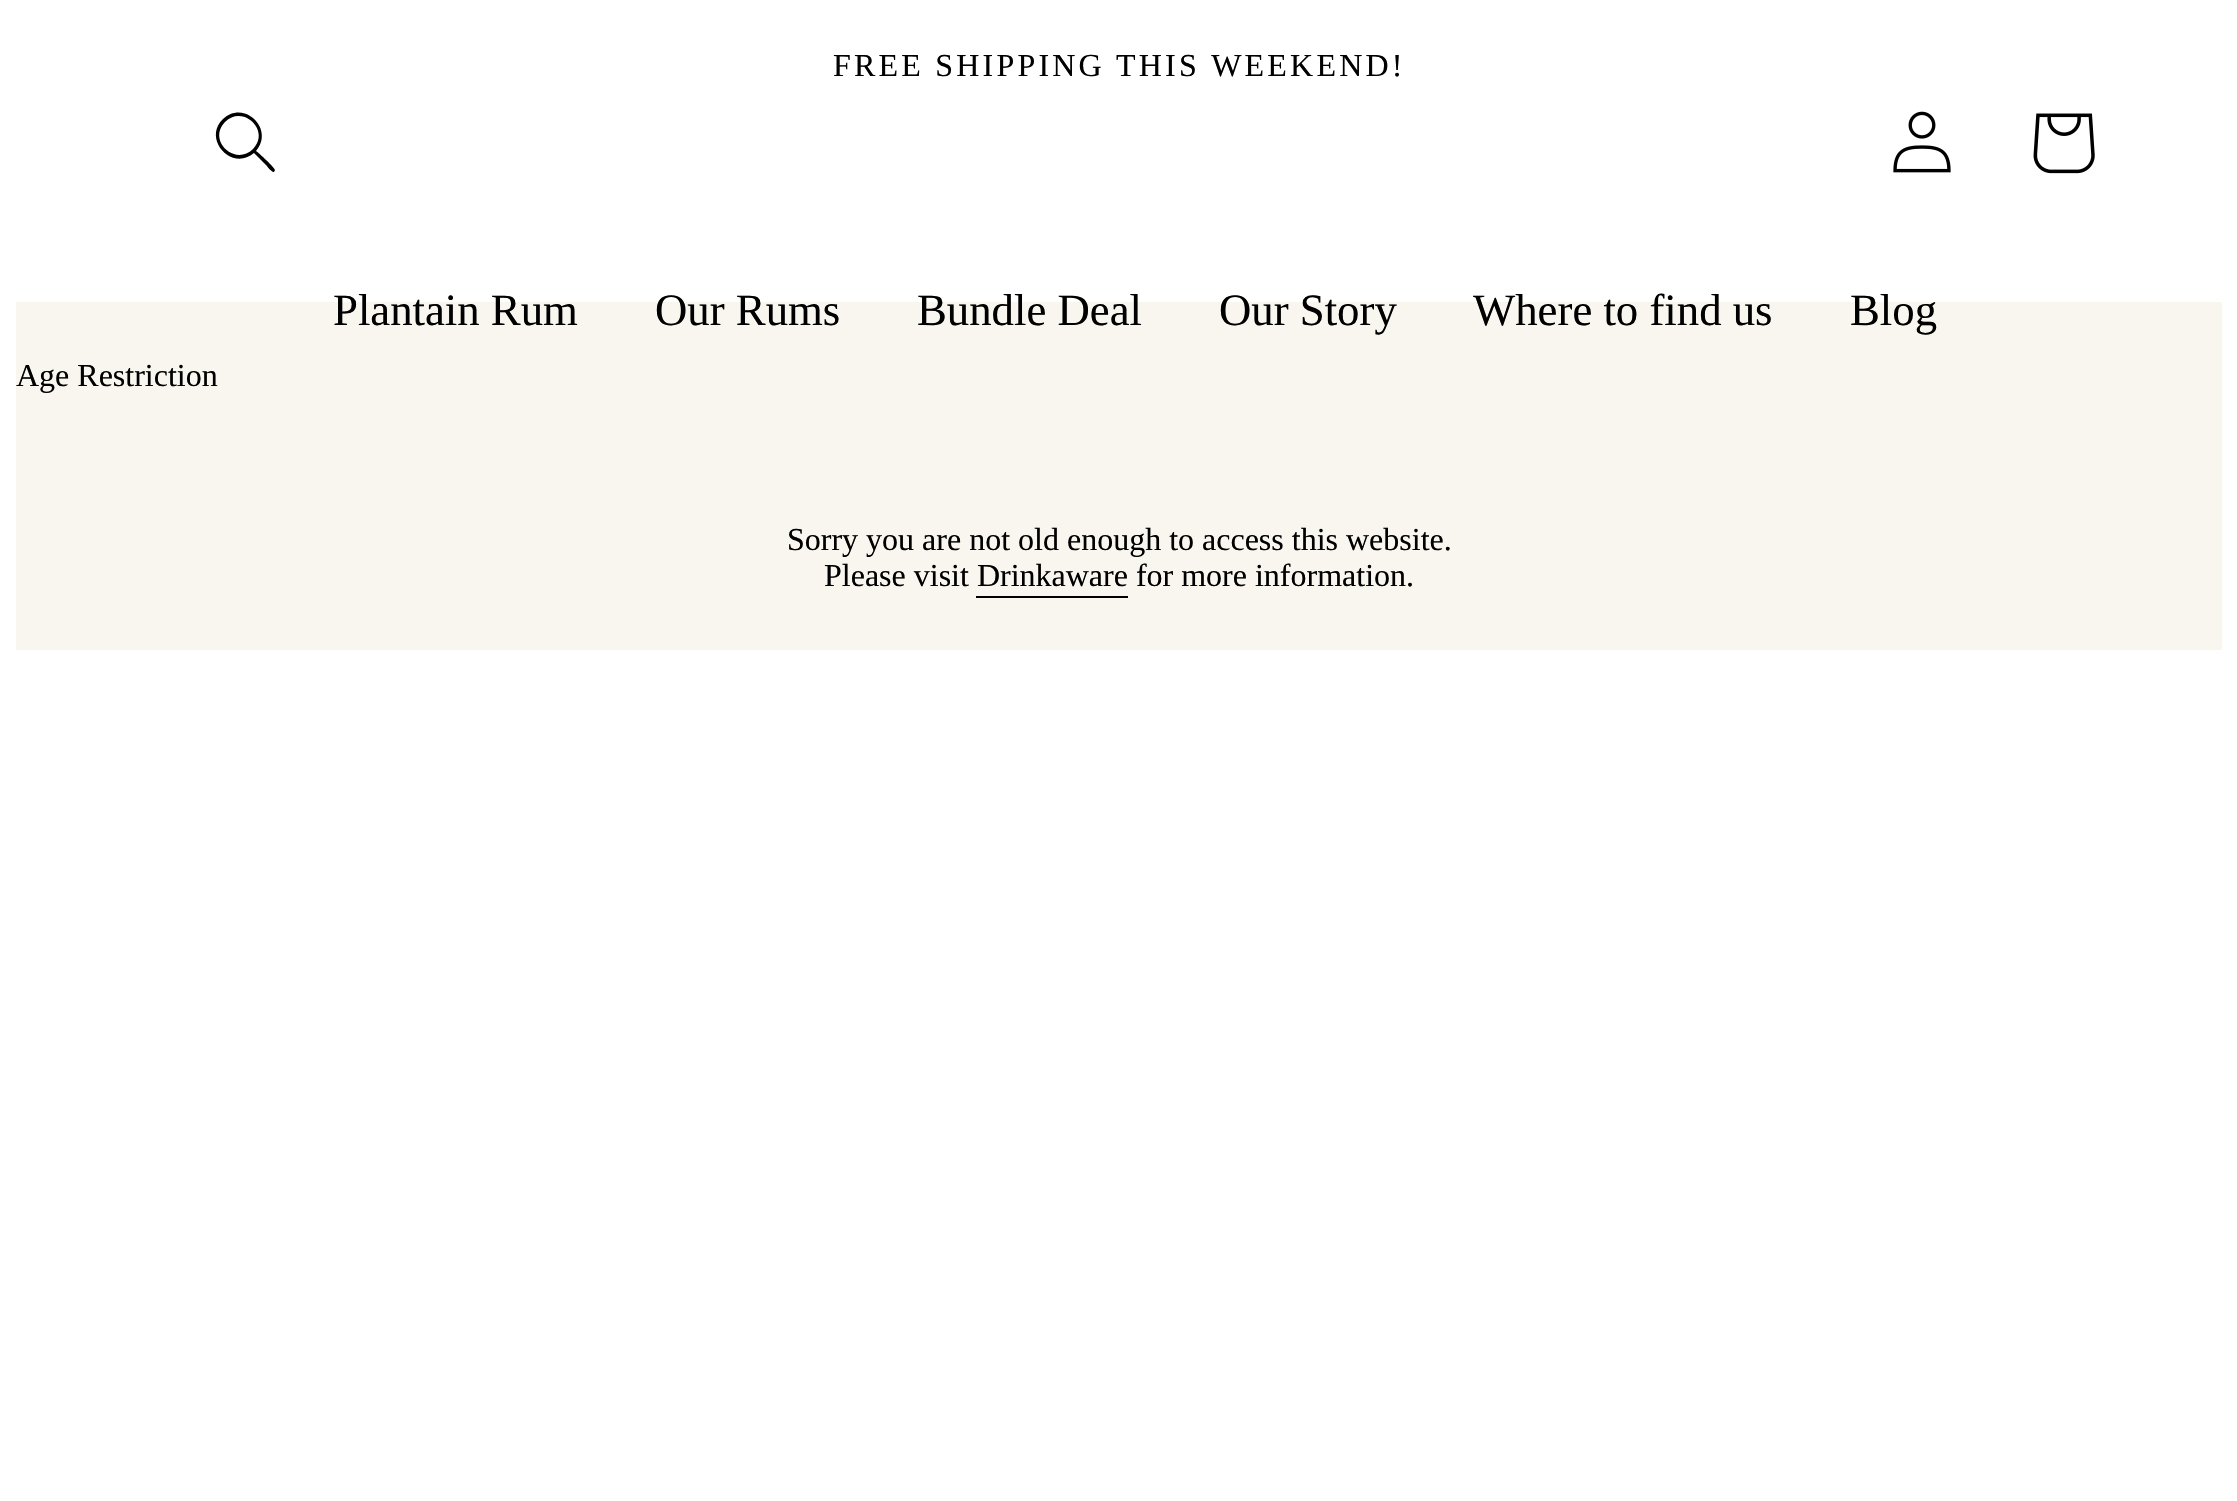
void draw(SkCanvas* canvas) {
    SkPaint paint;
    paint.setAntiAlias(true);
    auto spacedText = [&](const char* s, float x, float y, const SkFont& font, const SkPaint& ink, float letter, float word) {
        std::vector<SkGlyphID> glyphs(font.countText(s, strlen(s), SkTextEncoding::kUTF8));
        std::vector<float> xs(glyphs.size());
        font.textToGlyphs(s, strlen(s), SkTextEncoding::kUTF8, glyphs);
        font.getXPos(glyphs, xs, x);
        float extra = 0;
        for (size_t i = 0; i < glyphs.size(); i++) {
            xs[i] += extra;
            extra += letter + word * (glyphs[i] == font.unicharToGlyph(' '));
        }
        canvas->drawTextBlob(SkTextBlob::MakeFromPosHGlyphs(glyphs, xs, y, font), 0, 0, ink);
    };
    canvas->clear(0xFFFFFFFF);
    SkFont font1(fontMgr->matchFamilyStyle("Liberation Serif", SkFontStyle::Normal()), 32);
    font1.setSubpixel(true);
    paint.setColor(0xFF000000);
    spacedText("FREE SHIPPING THIS WEEKEND!", 833, 76, font1, paint, 3.2f, 0);
    canvas->drawPath(SkPathBuilder(SkPathFillType::kEvenOdd).moveTo(253, 149).cubicTo(235, 167, 207, 140, 225, 122).cubicTo(243, 104, 271, 131, 253, 149).close().moveTo(254, 153).cubicTo(232, 172, 202, 139, 223, 119).cubicTo(244, 99, 275, 129, 256, 151).cubicTo(259, 153, 275, 168, 275, 170).lineTo(274, 172).cubicTo(272, 173, 267, 166, 266, 165).close().detach(), paint);
    canvas->drawImageRect(SkImages::DeferredFromEncodedData(SkData::MakeFromFileName("img1.png")), SkRect::MakeXYWH(1893, 111, 58, 62), SkSamplingOptions());
    canvas->drawImageRect(SkImages::DeferredFromEncodedData(SkData::MakeFromFileName("img2.png")), SkRect::MakeXYWH(2033, 113, 62, 61), SkSamplingOptions());
    paint.setColor(0xFFF9F6EF);
    canvas->drawRect(SkRect::MakeXYWH(16, 302, 2206, 348), paint);
    SkFont font2(fontMgr->matchFamilyStyle("Liberation Serif", SkFontStyle::Normal()), 44.75f);
    font2.setSubpixel(true);
    paint.setColor(0xFF000000);
    canvas->drawString("Plantain Rum", 333, 325, font2, paint);
    canvas->drawString("Our Rums", 655, 325, font2, paint);
    canvas->drawString("Bundle Deal", 917, 325, font2, paint);
    canvas->drawString("Our Story", 1219, 325, font2, paint);
    canvas->drawString("Where to find us", 1473, 325, font2, paint);
    canvas->drawString("Blog", 1850, 325, font2, paint);
    canvas->drawString("Age Restriction", 16, 386, font1, paint);
    canvas->drawString("Sorry you are not old enough to access this website.", 787, 550, font1, paint);
    canvas->drawString("Please visit Drinkaware for more information.", 824, 586, font1, paint);
    canvas->drawRect(SkRect::MakeXYWH(976, 596, 152, 2), paint);
}
